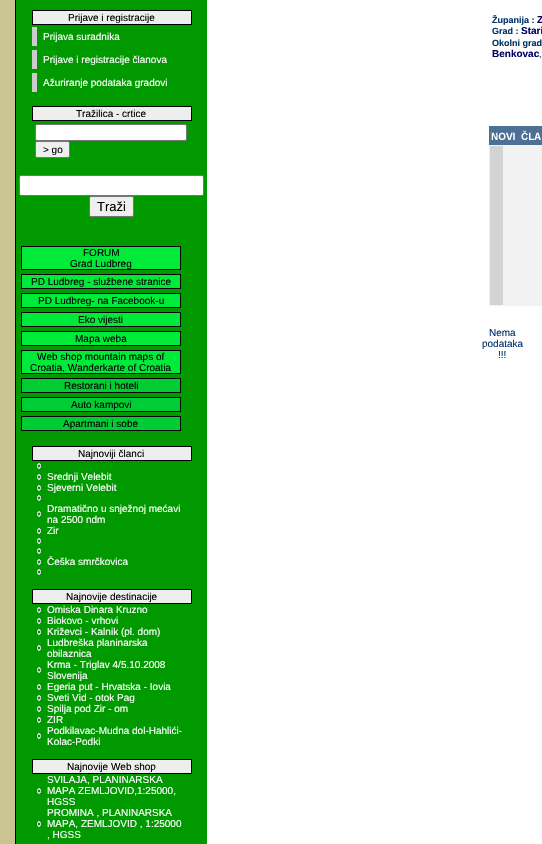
void draw(SkCanvas* canvas) {
    SkPaint paint;
    paint.setAntiAlias(true);
    canvas->clear(0xFFCAC493);
    paint.setColor(0xFF000000);
    canvas->drawRect(SkRect::MakeXYWH(15, 0, 1, 844), paint);
    paint.setColor(0xFF009900);
    canvas->drawRect(SkRect::MakeXYWH(16, 0, 191, 844), paint);
    paint.setColor(0xFFEEEEEE);
    canvas->drawRect(SkRect::MakeXYWH(32.5f, 10.5f, 159, 14), paint);
    paint.setStyle(SkPaint::kStroke_Style);
    paint.setStrokeWidth(1);
    paint.setColor(0xFF000000);
    canvas->drawRect(SkRect::MakeXYWH(32.5f, 10.5f, 159, 14), paint);
    SkFont font1(fontMgr->matchFamilyStyle("Liberation Sans", SkFontStyle::Normal()), 10);
    font1.setSubpixel(true);
    paint.setStyle(SkPaint::kFill_Style);
    canvas->drawString("Prijave i registracije", 68, 21, font1, paint);
    paint.setColor(0xFFCCCCCC);
    canvas->drawRect(SkRect::MakeXYWH(32, 27, 5, 19), paint);
    paint.setColor(0xFFFFFFFF);
    canvas->drawString("Prijava suradnika", 43, 40, font1, paint);
    paint.setColor(0xFFCCCCCC);
    canvas->drawRect(SkRect::MakeXYWH(32, 50, 5, 19), paint);
    paint.setColor(0xFFFFFFFF);
    canvas->drawString("Prijave i registracije članova", 43, 63, font1, paint);
    paint.setColor(0xFFCCCCCC);
    canvas->drawRect(SkRect::MakeXYWH(32, 73, 5, 19), paint);
    paint.setColor(0xFFFFFFFF);
    canvas->drawString("Ažuriranje podataka gradovi", 43, 86, font1, paint);
    paint.setColor(0xFFEEEEEE);
    canvas->drawRect(SkRect::MakeXYWH(32.5f, 106.5f, 159, 14), paint);
    paint.setStyle(SkPaint::kStroke_Style);
    paint.setColor(0xFF000000);
    canvas->drawRect(SkRect::MakeXYWH(32.5f, 106.5f, 159, 14), paint);
    paint.setStyle(SkPaint::kFill_Style);
    canvas->drawString("Tražilica - crtice", 76, 117, font1, paint);
    paint.setColor(0xFFFFFFFF);
    canvas->drawRoundRect(SkRect::MakeXYWH(35.5f, 124.5f, 151, 16), 1.5f, 1.5f, paint);
    paint.setStyle(SkPaint::kStroke_Style);
    paint.setColor(0xFF767676);
    canvas->drawRoundRect(SkRect::MakeXYWH(35.5f, 124.5f, 151, 16), 1.5f, 1.5f, paint);
    paint.setStyle(SkPaint::kFill_Style);
    paint.setColor(0xFFEFEFEF);
    canvas->drawRoundRect(SkRect::MakeXYWH(35.5f, 141.5f, 34, 16), 1.5f, 1.5f, paint);
    paint.setStyle(SkPaint::kStroke_Style);
    paint.setColor(0xFF767676);
    canvas->drawRoundRect(SkRect::MakeXYWH(35.5f, 141.5f, 34, 16), 1.5f, 1.5f, paint);
    paint.setStyle(SkPaint::kFill_Style);
    paint.setColor(0xFF000000);
    canvas->drawString("> go", 43, 153, font1, paint);
    paint.setColor(0xFFFFFFFF);
    canvas->drawRoundRect(SkRect::MakeXYWH(19.5f, 175.5f, 184, 20), 1.5f, 1.5f, paint);
    paint.setStyle(SkPaint::kStroke_Style);
    paint.setColor(0xFF767676);
    canvas->drawRoundRect(SkRect::MakeXYWH(19.5f, 175.5f, 184, 20), 1.5f, 1.5f, paint);
    paint.setStyle(SkPaint::kFill_Style);
    paint.setColor(0xFFEFEFEF);
    canvas->drawRoundRect(SkRect::MakeXYWH(89.5f, 196.5f, 44, 20), 1.5f, 1.5f, paint);
    paint.setStyle(SkPaint::kStroke_Style);
    paint.setColor(0xFF767676);
    canvas->drawRoundRect(SkRect::MakeXYWH(89.5f, 196.5f, 44, 20), 1.5f, 1.5f, paint);
    SkFont font2(fontMgr->matchFamilyStyle("Liberation Sans", SkFontStyle::Normal()), 13);
    font2.setSubpixel(true);
    paint.setStyle(SkPaint::kFill_Style);
    paint.setColor(0xFF000000);
    canvas->drawString("Traži", 97, 211, font2, paint);
    paint.setStyle(SkPaint::kStroke_Style);
    canvas->drawRect(SkRect::MakeXYWH(21.5f, 246.5f, 159, 23), paint);
    paint.setStyle(SkPaint::kFill_Style);
    paint.setColor(0xFF00EA3A);
    canvas->drawRect(SkRect::MakeXYWH(22, 247, 158, 22), paint);
    paint.setColor(0xFF000000);
    canvas->drawString("FORUM", 83, 256, font1, paint);
    canvas->drawString("Grad Ludbreg", 70, 267, font1, paint);
    paint.setStyle(SkPaint::kStroke_Style);
    canvas->drawRect(SkRect::MakeXYWH(21.5f, 274.5f, 159, 14), paint);
    paint.setStyle(SkPaint::kFill_Style);
    paint.setColor(0xFF00EA3A);
    canvas->drawRect(SkRect::MakeXYWH(22, 275, 158, 13), paint);
    paint.setColor(0xFF000000);
    canvas->drawString("PD Ludbreg - službene stranice", 31, 285, font1, paint);
    paint.setStyle(SkPaint::kStroke_Style);
    canvas->drawRect(SkRect::MakeXYWH(21.5f, 293.5f, 159, 14), paint);
    paint.setStyle(SkPaint::kFill_Style);
    paint.setColor(0xFF00EA3A);
    canvas->drawRect(SkRect::MakeXYWH(22, 294, 158, 13), paint);
    paint.setColor(0xFF000000);
    canvas->drawString("PD Ludbreg- na Facebook-u", 38, 304, font1, paint);
    paint.setStyle(SkPaint::kStroke_Style);
    canvas->drawRect(SkRect::MakeXYWH(21.5f, 312.5f, 159, 14), paint);
    paint.setStyle(SkPaint::kFill_Style);
    paint.setColor(0xFF00EA3A);
    canvas->drawRect(SkRect::MakeXYWH(22, 313, 158, 13), paint);
    paint.setColor(0xFF000000);
    canvas->drawString("Eko vijesti", 78, 323, font1, paint);
    paint.setStyle(SkPaint::kStroke_Style);
    canvas->drawRect(SkRect::MakeXYWH(21.5f, 331.5f, 159, 14), paint);
    paint.setStyle(SkPaint::kFill_Style);
    paint.setColor(0xFF00EA3A);
    canvas->drawRect(SkRect::MakeXYWH(22, 332, 158, 13), paint);
    paint.setColor(0xFF000000);
    canvas->drawString("Mapa weba", 75, 342, font1, paint);
    paint.setStyle(SkPaint::kStroke_Style);
    canvas->drawRect(SkRect::MakeXYWH(21.5f, 350.5f, 159, 23), paint);
    paint.setStyle(SkPaint::kFill_Style);
    paint.setColor(0xFF00EA3A);
    canvas->drawRect(SkRect::MakeXYWH(22, 351, 158, 22), paint);
    paint.setColor(0xFF000000);
    canvas->drawString("Web shop mountain maps of", 37, 360, font1, paint);
    canvas->drawString("Croatia, Wanderkarte of Croatia", 30, 371, font1, paint);
    paint.setStyle(SkPaint::kStroke_Style);
    canvas->drawRect(SkRect::MakeXYWH(21.5f, 378.5f, 159, 14), paint);
    paint.setStyle(SkPaint::kFill_Style);
    paint.setColor(0xFF00CC33);
    canvas->drawRect(SkRect::MakeXYWH(22, 379, 158, 13), paint);
    paint.setColor(0xFF000000);
    canvas->drawString("Restorani i hoteli", 64, 389, font1, paint);
    paint.setStyle(SkPaint::kStroke_Style);
    canvas->drawRect(SkRect::MakeXYWH(21.5f, 397.5f, 159, 14), paint);
    paint.setStyle(SkPaint::kFill_Style);
    paint.setColor(0xFF00CC33);
    canvas->drawRect(SkRect::MakeXYWH(22, 398, 158, 13), paint);
    paint.setColor(0xFF000000);
    canvas->drawString("Auto kampovi", 71, 408, font1, paint);
    paint.setStyle(SkPaint::kStroke_Style);
    canvas->drawRect(SkRect::MakeXYWH(21.5f, 416.5f, 159, 14), paint);
    paint.setStyle(SkPaint::kFill_Style);
    paint.setColor(0xFF00CC33);
    canvas->drawRect(SkRect::MakeXYWH(22, 417, 158, 13), paint);
    paint.setColor(0xFF000000);
    canvas->drawString("Apartmani i sobe", 63, 427, font1, paint);
    paint.setColor(0xFFEEEEEE);
    canvas->drawRect(SkRect::MakeXYWH(32.5f, 446.5f, 159, 14), paint);
    paint.setStyle(SkPaint::kStroke_Style);
    paint.setColor(0xFF000000);
    canvas->drawRect(SkRect::MakeXYWH(32.5f, 446.5f, 159, 14), paint);
    paint.setStyle(SkPaint::kFill_Style);
    canvas->drawString("Najnoviji članci", 78, 457, font1, paint);
    canvas->drawImageRect(SkImages::DeferredFromEncodedData(SkData::MakeFromFileName("img1.png")), SkRect::MakeXYWH(37, 463, 4, 6), SkSamplingOptions());
    canvas->drawImageRect(SkImages::DeferredFromEncodedData(SkData::MakeFromFileName("img1.png")), SkRect::MakeXYWH(37, 474, 4, 6), SkSamplingOptions());
    paint.setColor(0xFFFFFFFF);
    canvas->drawString("Srednji Velebit", 47, 480, font1, paint);
    canvas->drawImageRect(SkImages::DeferredFromEncodedData(SkData::MakeFromFileName("img1.png")), SkRect::MakeXYWH(37, 485, 4, 6), SkSamplingOptions());
    canvas->drawString("Sjeverni Velebit", 47, 491, font1, paint);
    canvas->drawImageRect(SkImages::DeferredFromEncodedData(SkData::MakeFromFileName("img1.png")), SkRect::MakeXYWH(37, 495, 4, 6), SkSamplingOptions());
    canvas->drawImageRect(SkImages::DeferredFromEncodedData(SkData::MakeFromFileName("img1.png")), SkRect::MakeXYWH(37, 511, 4, 6), SkSamplingOptions());
    canvas->drawString("Dramatično u snježnoj mećavi", 47, 512, font1, paint);
    canvas->drawString("na 2500 ndm", 47, 523, font1, paint);
    canvas->drawImageRect(SkImages::DeferredFromEncodedData(SkData::MakeFromFileName("img1.png")), SkRect::MakeXYWH(37, 528, 4, 6), SkSamplingOptions());
    canvas->drawString("Zir", 47, 534, font1, paint);
    canvas->drawImageRect(SkImages::DeferredFromEncodedData(SkData::MakeFromFileName("img1.png")), SkRect::MakeXYWH(37, 538, 4, 6), SkSamplingOptions());
    canvas->drawImageRect(SkImages::DeferredFromEncodedData(SkData::MakeFromFileName("img1.png")), SkRect::MakeXYWH(37, 548, 4, 6), SkSamplingOptions());
    canvas->drawImageRect(SkImages::DeferredFromEncodedData(SkData::MakeFromFileName("img1.png")), SkRect::MakeXYWH(37, 559, 4, 6), SkSamplingOptions());
    canvas->drawString("Češka smrčkovica", 47, 565, font1, paint);
    canvas->drawImageRect(SkImages::DeferredFromEncodedData(SkData::MakeFromFileName("img1.png")), SkRect::MakeXYWH(37, 569, 4, 6), SkSamplingOptions());
    paint.setColor(0xFFEEEEEE);
    canvas->drawRect(SkRect::MakeXYWH(32.5f, 589.5f, 159, 14), paint);
    paint.setStyle(SkPaint::kStroke_Style);
    paint.setColor(0xFF000000);
    canvas->drawRect(SkRect::MakeXYWH(32.5f, 589.5f, 159, 14), paint);
    paint.setStyle(SkPaint::kFill_Style);
    canvas->drawString("Najnovije destinacije", 66, 600, font1, paint);
    canvas->drawImageRect(SkImages::DeferredFromEncodedData(SkData::MakeFromFileName("img1.png")), SkRect::MakeXYWH(37, 607, 4, 6), SkSamplingOptions());
    paint.setColor(0xFFFFFFFF);
    canvas->drawString("Omiska Dinara Kruzno", 47, 613, font1, paint);
    canvas->drawImageRect(SkImages::DeferredFromEncodedData(SkData::MakeFromFileName("img1.png")), SkRect::MakeXYWH(37, 618, 4, 6), SkSamplingOptions());
    canvas->drawString("Biokovo - vrhovi", 47, 624, font1, paint);
    canvas->drawImageRect(SkImages::DeferredFromEncodedData(SkData::MakeFromFileName("img1.png")), SkRect::MakeXYWH(37, 629, 4, 6), SkSamplingOptions());
    canvas->drawString("Križevci - Kalnik (pl. dom)", 47, 635, font1, paint);
    canvas->drawImageRect(SkImages::DeferredFromEncodedData(SkData::MakeFromFileName("img1.png")), SkRect::MakeXYWH(37, 645, 4, 6), SkSamplingOptions());
    canvas->drawString("Ludbreška planinarska", 47, 646, font1, paint);
    canvas->drawString("obilaznica", 47, 657, font1, paint);
    canvas->drawImageRect(SkImages::DeferredFromEncodedData(SkData::MakeFromFileName("img1.png")), SkRect::MakeXYWH(37, 667, 4, 6), SkSamplingOptions());
    canvas->drawString("Krma - Triglav 4/5.10.2008", 47, 668, font1, paint);
    canvas->drawString("Slovenija", 47, 679, font1, paint);
    canvas->drawImageRect(SkImages::DeferredFromEncodedData(SkData::MakeFromFileName("img1.png")), SkRect::MakeXYWH(37, 684, 4, 6), SkSamplingOptions());
    canvas->drawString("Egeria put - Hrvatska - Iovia", 47, 690, font1, paint);
    canvas->drawImageRect(SkImages::DeferredFromEncodedData(SkData::MakeFromFileName("img1.png")), SkRect::MakeXYWH(37, 695, 4, 6), SkSamplingOptions());
    canvas->drawString("Sveti Vid - otok Pag", 47, 701, font1, paint);
    canvas->drawImageRect(SkImages::DeferredFromEncodedData(SkData::MakeFromFileName("img1.png")), SkRect::MakeXYWH(37, 706, 4, 6), SkSamplingOptions());
    canvas->drawString("Spilja pod Zir - om", 47, 712, font1, paint);
    canvas->drawImageRect(SkImages::DeferredFromEncodedData(SkData::MakeFromFileName("img1.png")), SkRect::MakeXYWH(37, 717, 4, 6), SkSamplingOptions());
    canvas->drawString("ZIR", 47, 723, font1, paint);
    canvas->drawImageRect(SkImages::DeferredFromEncodedData(SkData::MakeFromFileName("img1.png")), SkRect::MakeXYWH(37, 733, 4, 6), SkSamplingOptions());
    canvas->drawString("Podkilavac-Mudna dol-Hahlići-", 47, 734, font1, paint);
    canvas->drawString("Kolac-Podki", 47, 745, font1, paint);
    paint.setColor(0xFFEEEEEE);
    canvas->drawRect(SkRect::MakeXYWH(32.5f, 759.5f, 159, 14), paint);
    paint.setStyle(SkPaint::kStroke_Style);
    paint.setColor(0xFF000000);
    canvas->drawRect(SkRect::MakeXYWH(32.5f, 759.5f, 159, 14), paint);
    paint.setStyle(SkPaint::kFill_Style);
    canvas->drawString("Najnovije Web shop", 67, 770, font1, paint);
    canvas->drawImageRect(SkImages::DeferredFromEncodedData(SkData::MakeFromFileName("img1.png")), SkRect::MakeXYWH(37, 788, 4, 6), SkSamplingOptions());
    paint.setColor(0xFFFFFFFF);
    canvas->drawString("SVILAJA, PLANINARSKA", 47, 783, font1, paint);
    canvas->drawString("MAPA ZEMLJOVID,1:25000,", 47, 794, font1, paint);
    canvas->drawString("HGSS", 47, 805, font1, paint);
    canvas->drawImageRect(SkImages::DeferredFromEncodedData(SkData::MakeFromFileName("img1.png")), SkRect::MakeXYWH(37, 821, 4, 6), SkSamplingOptions());
    canvas->drawString("PROMINA , PLANINARSKA", 47, 816, font1, paint);
    canvas->drawString("MAPA, ZEMLJOVID , 1:25000", 47, 827, font1, paint);
    canvas->drawString(", HGSS", 47, 838, font1, paint);
    canvas->drawRect(SkRect::MakeXYWH(207, 0, 335, 844), paint);
    SkFont font3(fontMgr->matchFamilyStyle("Liberation Sans", SkFontStyle::Bold()), 9);
    font3.setSubpixel(true);
    paint.setColor(0xFF003366);
    canvas->drawString("Županija :", 492, 23, font3, paint);
    SkFont font4(fontMgr->matchFamilyStyle("Liberation Sans", SkFontStyle::Bold()), 10);
    font4.setSubpixel(true);
    paint.setColor(0xFF000066);
    canvas->drawString("Z", 537, 23, font4, paint);
    paint.setColor(0xFF003366);
    canvas->drawString("Grad :", 492, 34, font3, paint);
    paint.setColor(0xFF000066);
    canvas->drawString("Stari", 521, 34, font4, paint);
    paint.setColor(0xFF003366);
    canvas->drawString("Okolni grad", 492, 46, font3, paint);
    paint.setColor(0xFF000066);
    canvas->drawString("Benkovac", 492, 57, font4, paint);
    SkFont font5(fontMgr->matchFamilyStyle("Liberation Sans", SkFontStyle::Normal()), 9);
    font5.setSubpixel(true);
    paint.setColor(0xFF003366);
    canvas->drawString(",", 539, 57, font5, paint);
    canvas->drawImageRect(SkImages::DeferredFromEncodedData(SkData::MakeFromFileName("img2.png")), SkRect::MakeXYWH(489, 126, 53, 19), SkSamplingOptions());
    paint.setColor(0xFFF2F2F2);
    canvas->drawRect(SkRect::MakeXYWH(489, 145, 53, 161), paint);
    paint.setColor(0xFFD3D3D3);
    canvas->drawRect(SkRect::MakeXYWH(490, 146, 13, 159), paint);
    paint.setColor(0xFF003366);
    canvas->drawString("Nema", 489, 336, font1, paint);
    canvas->drawString("podataka", 482, 347, font1, paint);
    canvas->drawString("!!!", 498, 358, font1, paint);
}
